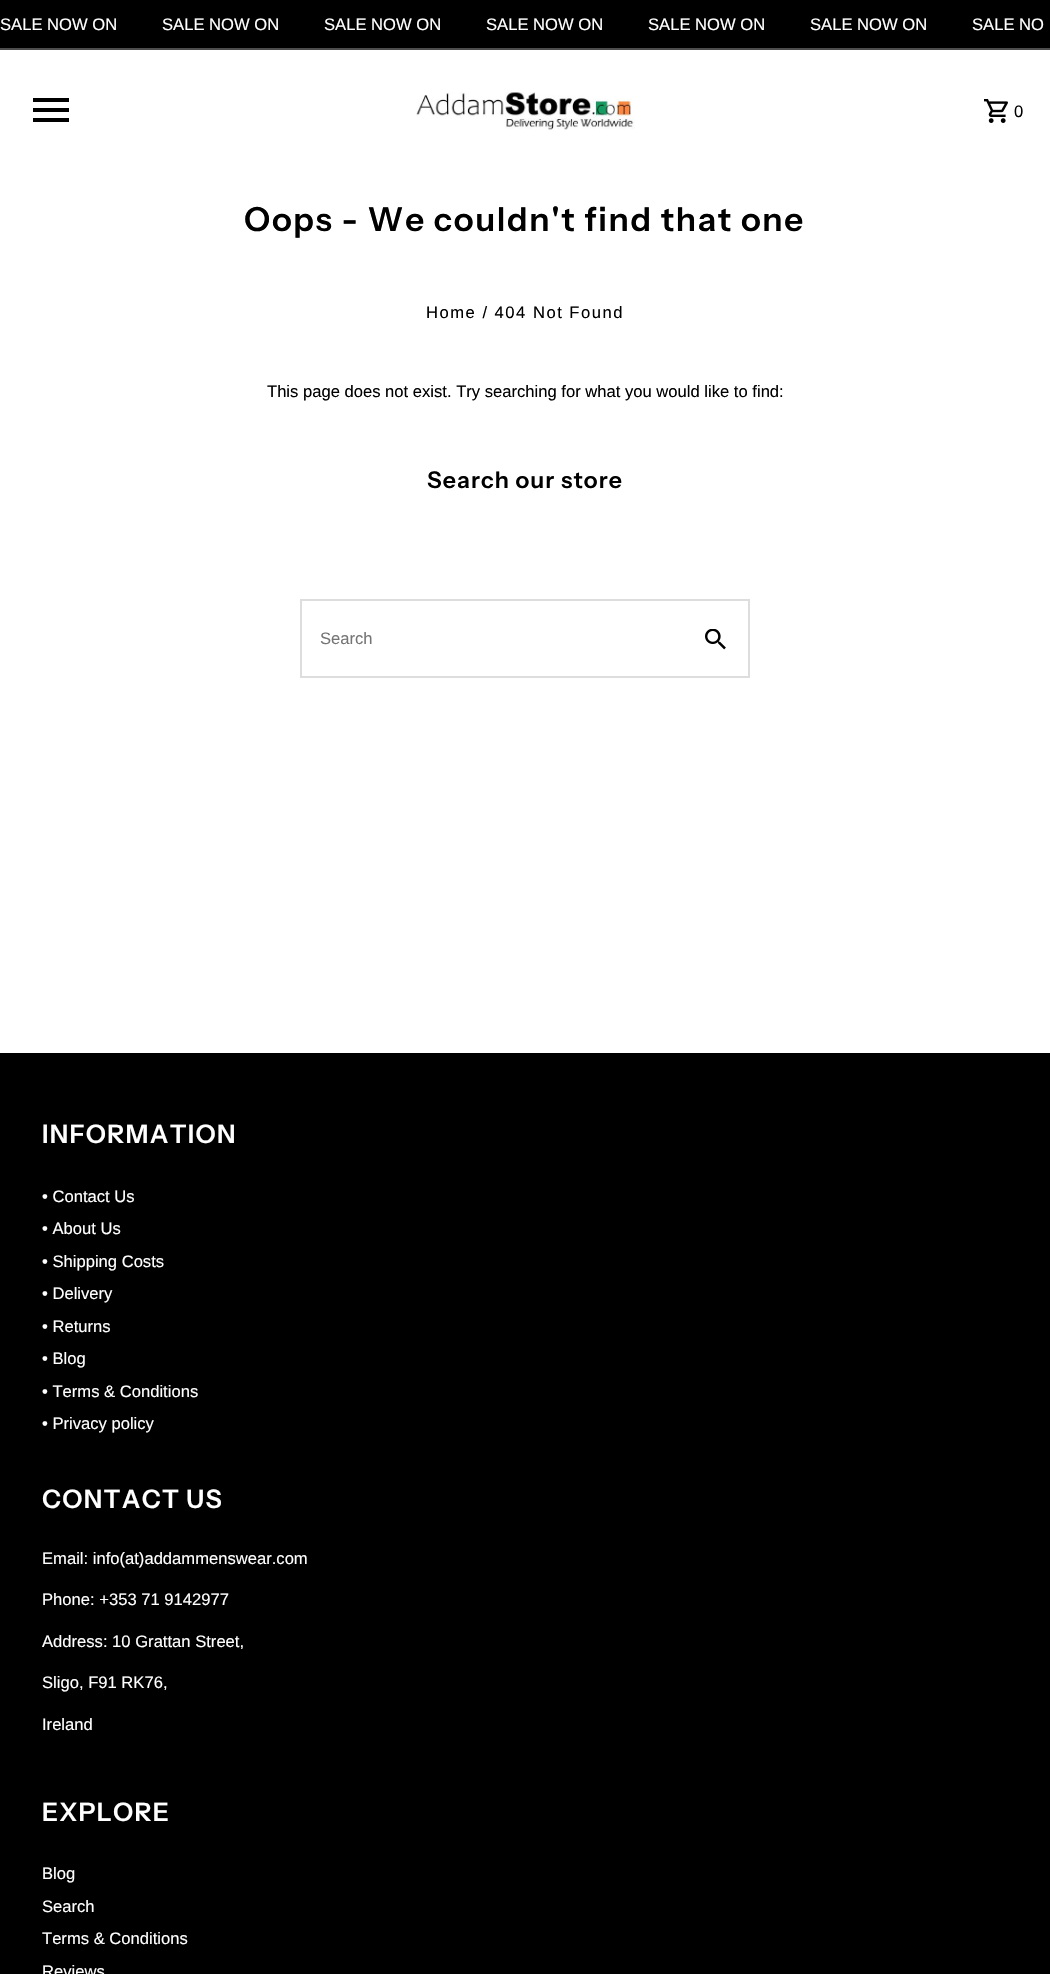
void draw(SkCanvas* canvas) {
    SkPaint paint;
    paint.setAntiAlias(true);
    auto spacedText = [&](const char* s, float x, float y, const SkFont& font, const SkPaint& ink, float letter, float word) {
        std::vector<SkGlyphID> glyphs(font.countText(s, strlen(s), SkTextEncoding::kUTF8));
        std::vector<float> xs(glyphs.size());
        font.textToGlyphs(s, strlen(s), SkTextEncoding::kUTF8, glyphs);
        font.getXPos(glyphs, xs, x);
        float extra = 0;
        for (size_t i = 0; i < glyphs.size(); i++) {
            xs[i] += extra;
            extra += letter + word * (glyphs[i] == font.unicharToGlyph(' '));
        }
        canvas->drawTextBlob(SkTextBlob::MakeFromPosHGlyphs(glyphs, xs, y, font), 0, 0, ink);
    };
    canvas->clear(0xFFFFFFFF);
    paint.setColor(0xFF000000);
    canvas->drawRect(SkRect::MakeXYWH(0, 0, 1050, 48), paint);
    SkFont font1(fontMgr->matchFamilyStyle("Arimo", SkFontStyle::Normal()), 16.6f);
    font1.setSubpixel(true);
    paint.setColor(0xFFFFFFFF);
    canvas->drawString("SALE NOW ON", 0, 30, font1, paint);
    canvas->drawString("SALE NOW ON", 162, 30, font1, paint);
    canvas->drawString("SALE NOW ON", 324, 30, font1, paint);
    canvas->drawString("SALE NOW ON", 486, 30, font1, paint);
    canvas->drawString("SALE NOW ON", 648, 30, font1, paint);
    canvas->drawString("SALE NOW ON", 810, 30, font1, paint);
    canvas->drawString("SALE NO", 972, 30, font1, paint);
    paint.setColor(0xFF4D4D4D);
    canvas->drawRect(SkRect::MakeXYWH(0, 48, 1050, 2), paint);
    paint.setColor(0xFF000000);
    canvas->drawRect(SkRect::MakeXYWH(33, 118, 36, 4), paint);
    canvas->drawRect(SkRect::MakeXYWH(33, 108, 36, 4), paint);
    canvas->drawRect(SkRect::MakeXYWH(33, 98, 36, 4), paint);
    canvas->drawImageRect(SkImages::DeferredFromEncodedData(SkData::MakeFromFileName("img1.png")), SkRect::MakeXYWH(416, 92, 219, 38), SkSamplingOptions());
    canvas->drawImageRect(SkImages::DeferredFromEncodedData(SkData::MakeFromFileName("img2.png")), SkRect::MakeXYWH(984, 99, 24, 24), SkSamplingOptions());
    spacedText("0", 1014, 117, font1, paint, 1.5f, 0);
    SkFont font2(fontMgr->matchFamilyStyle("Instrument Sans", SkFontStyle(600, SkFontStyle::kNormal_Width, SkFontStyle::kUpright_Slant)), 33.1f);
    font2.setSubpixel(true);
    spacedText("Oops - We couldn't find that one", 244, 231, font2, paint, 1.65f, 0);
    spacedText("Home / 404 Not Found", 426, 318, font1, paint, 1.5f, 0);
    canvas->drawString("This page does not exist. Try searching for what you would like to find:", 267, 397, font1, paint);
    SkFont font3(fontMgr->matchFamilyStyle("Instrument Sans", SkFontStyle(600, SkFontStyle::kNormal_Width, SkFontStyle::kUpright_Slant)), 23);
    font3.setSubpixel(true);
    spacedText("Search our store", 427, 488, font3, paint, 1.1f, 0);
    paint.setStyle(SkPaint::kStroke_Style);
    paint.setStrokeWidth(2);
    paint.setColor(0xFFDDDDDD);
    canvas->drawRect(SkRect::MakeXYWH(301, 600, 448, 77), paint);
    paint.setStyle(SkPaint::kFill_Style);
    paint.setColor(0xFF757575);
    canvas->drawString("Search", 320, 644, font1, paint);
    canvas->drawImageRect(SkImages::DeferredFromEncodedData(SkData::MakeFromFileName("img3.png")), SkRect::MakeXYWH(705, 629, 21, 21), SkSamplingOptions());
    paint.setColor(0xFF000000);
    canvas->drawRect(SkRect::MakeXYWH(0, 1053, 1050, 921), paint);
    SkFont font4(fontMgr->matchFamilyStyle("Instrument Sans", SkFontStyle(600, SkFontStyle::kNormal_Width, SkFontStyle::kUpright_Slant)), 25.5f);
    font4.setSubpixel(true);
    paint.setColor(0xFFFFFFFF);
    spacedText("INFORMATION", 42, 1143, font4, paint, 1.25f, 0);
    canvas->drawString("• Contact Us", 42, 1202, font1, paint);
    canvas->drawString("• About Us", 42, 1234, font1, paint);
    canvas->drawString("• Shipping Costs", 42, 1267, font1, paint);
    canvas->drawString("• Delivery", 42, 1299, font1, paint);
    canvas->drawString("• Returns", 42, 1332, font1, paint);
    canvas->drawString("• Blog", 42, 1364, font1, paint);
    canvas->drawString("• Terms & Conditions", 42, 1397, font1, paint);
    canvas->drawString("• Privacy policy", 42, 1429, font1, paint);
    spacedText("CONTACT US", 42, 1508, font4, paint, 1.25f, 0);
    canvas->drawString("Email: info(at)addammenswear.com", 42, 1564, font1, paint);
    canvas->drawString("Phone: +353 71 9142977", 42, 1605, font1, paint);
    canvas->drawString("Address: 10 Grattan Street,", 42, 1647, font1, paint);
    canvas->drawString("Sligo, F91 RK76,", 42, 1688, font1, paint);
    canvas->drawString("Ireland", 42, 1730, font1, paint);
    spacedText("EXPLORE", 42, 1821, font4, paint, 1.25f, 0);
    canvas->drawString("Blog", 42, 1879, font1, paint);
    canvas->drawString("Search", 42, 1912, font1, paint);
    canvas->drawString("Terms & Conditions", 42, 1944, font1, paint);
    canvas->drawString("Reviews", 42, 1977, font1, paint);
}
